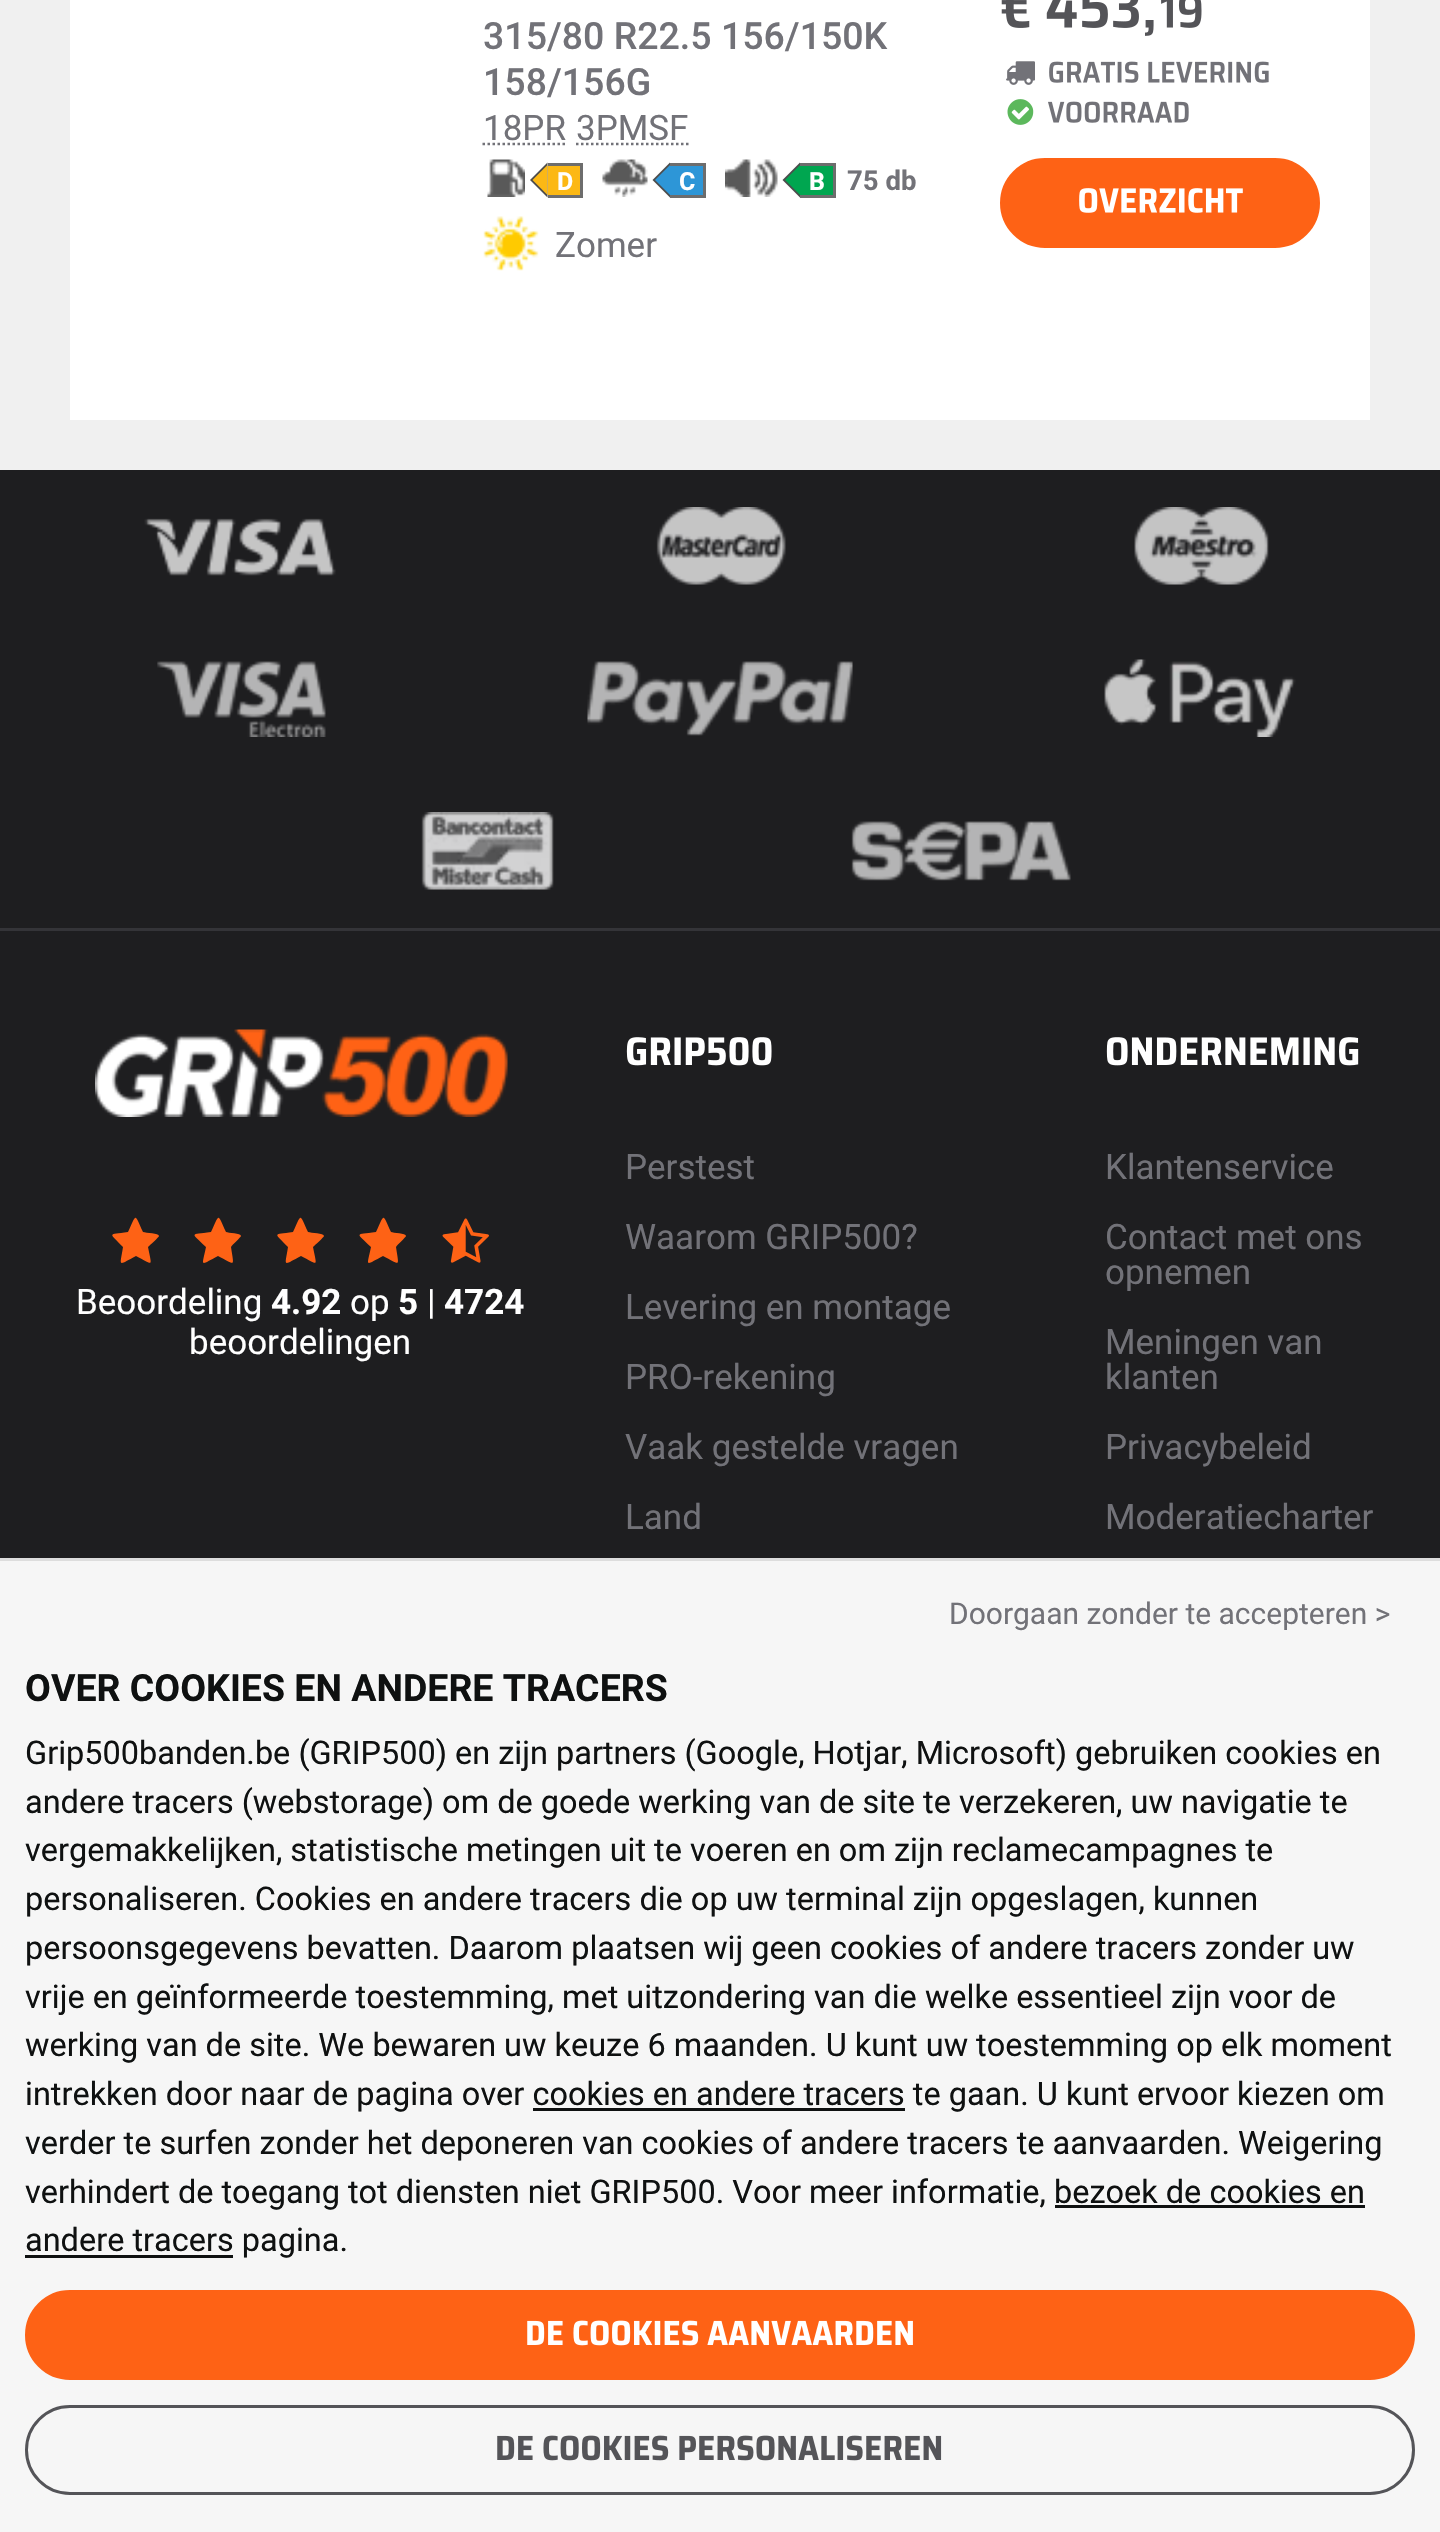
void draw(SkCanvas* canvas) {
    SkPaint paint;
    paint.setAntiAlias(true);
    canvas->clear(0xFFF0F0F0);
    paint.setColor(0xFFFFFFFF);
    canvas->drawRect(SkRect::MakeXYWH(70, 0, 1300, 420), paint);
    SkFont font1(fontMgr->matchFamilyStyle("Roboto", SkFontStyle(500, SkFontStyle::kNormal_Width, SkFontStyle::kUpright_Slant)), 37.5f);
    font1.setSubpixel(true);
    paint.setColor(0xFF727278);
    canvas->drawString("315/80 R22.5 156/150K", 483, 49, font1, paint);
    canvas->drawString("158/156G", 483, 95, font1, paint);
    SkFont font2(fontMgr->matchFamilyStyle("Roboto", SkFontStyle::Normal()), 35);
    font2.setSubpixel(true);
    canvas->drawString("18PR", 483, 140, font2, paint);
    paint.setStyle(SkPaint::kStroke_Style);
    paint.setStrokeWidth(2.5f);
    paint.setPathEffect(SkDashPathEffect::Make({{2.5f, 2.5f}}, 0));
    canvas->drawPath(SkPathBuilder().moveTo(482.5f, 144).lineTo(565.5f, 144).detach(), paint);
    paint.setPathEffect(nullptr);
    paint.setStyle(SkPaint::kFill_Style);
    canvas->drawString("3PMSF", 576, 140, font2, paint);
    paint.setStyle(SkPaint::kStroke_Style);
    paint.setPathEffect(SkDashPathEffect::Make({{2.5f, 2.5f}}, 0));
    canvas->drawPath(SkPathBuilder().moveTo(576, 144).lineTo(688.5f, 144).detach(), paint);
    paint.setPathEffect(nullptr);
    canvas->drawImageRect(SkImages::DeferredFromEncodedData(SkData::MakeFromFileName("img1.png")), SkRect::MakeXYWH(487, 159, 38, 38), SkSamplingOptions());
    paint.setStyle(SkPaint::kFill_Style);
    paint.setColor(0xFFFCB814);
    canvas->drawRect(SkRect::MakeXYWH(548, 166, 32, 29), paint);
    paint.setColor(0xFF6D6D6D);
    canvas->drawRect(SkRect::MakeXYWH(548, 163, 35, 3), paint);
    canvas->drawRect(SkRect::MakeXYWH(580, 163, 3, 35), paint);
    canvas->drawRect(SkRect::MakeXYWH(548, 195, 35, 3), paint);
    paint.setColor(0xFF4C4C4C);
    canvas->drawPath(SkPathBuilder().moveTo(547.5f, 162.5f).lineTo(547.5f, 197.5f).lineTo(530, 180).close().detach(), paint);
    paint.setColor(0xFFFCB814);
    canvas->drawPath(SkPathBuilder().moveTo(547.5f, 165).lineTo(547.5f, 195).lineTo(532.5f, 180).close().detach(), paint);
    SkFont font3(fontMgr->matchFamilyStyle("Roboto", SkFontStyle::Bold()), 25);
    font3.setSubpixel(true);
    paint.setColor(0xFFFFFFFF);
    canvas->drawString("D", 557, 190, font3, paint);
    canvas->drawImageRect(SkImages::DeferredFromEncodedData(SkData::MakeFromFileName("img2.png")), SkRect::MakeXYWH(602, 159, 46, 38), SkSamplingOptions());
    paint.setColor(0xFF2D96D7);
    canvas->drawRect(SkRect::MakeXYWH(670, 166, 33, 29), paint);
    paint.setColor(0xFF6D6D6D);
    canvas->drawRect(SkRect::MakeXYWH(670, 163, 35, 3), paint);
    canvas->drawRect(SkRect::MakeXYWH(703, 163, 3, 35), paint);
    canvas->drawRect(SkRect::MakeXYWH(670, 195, 35, 3), paint);
    paint.setColor(0xFF4C4C4C);
    canvas->drawPath(SkPathBuilder().moveTo(670, 162.5f).lineTo(670, 197.5f).lineTo(652.5f, 180).close().detach(), paint);
    paint.setColor(0xFF2D96D7);
    canvas->drawPath(SkPathBuilder().moveTo(670, 165).lineTo(670, 195).lineTo(655, 180).close().detach(), paint);
    paint.setColor(0xFFFFFFFF);
    canvas->drawString("C", 679, 190, font3, paint);
    canvas->drawImageRect(SkImages::DeferredFromEncodedData(SkData::MakeFromFileName("img3.png")), SkRect::MakeXYWH(725, 159, 53, 38), SkSamplingOptions());
    paint.setColor(0xFF00A650);
    canvas->drawRect(SkRect::MakeXYWH(800, 166, 33, 29), paint);
    paint.setColor(0xFF6D6D6D);
    canvas->drawRect(SkRect::MakeXYWH(800, 163, 35, 3), paint);
    canvas->drawRect(SkRect::MakeXYWH(833, 163, 3, 35), paint);
    canvas->drawRect(SkRect::MakeXYWH(800, 195, 35, 3), paint);
    paint.setColor(0xFF4C4C4C);
    canvas->drawPath(SkPathBuilder().moveTo(800, 162.5f).lineTo(800, 197.5f).lineTo(782.5f, 180).close().detach(), paint);
    paint.setColor(0xFF00A650);
    canvas->drawPath(SkPathBuilder().moveTo(800, 165).lineTo(800, 195).lineTo(785, 180).close().detach(), paint);
    paint.setColor(0xFFFFFFFF);
    canvas->drawString("B", 809, 190, font3, paint);
    SkFont font4(fontMgr->matchFamilyStyle("Roboto", SkFontStyle::Bold()), 27.5f);
    font4.setSubpixel(true);
    paint.setColor(0xFF727278);
    canvas->drawString("75 db", 847, 190, font4, paint);
    canvas->drawImageRect(SkImages::DeferredFromEncodedData(SkData::MakeFromFileName("img4.png")), SkRect::MakeXYWH(483, 216, 56, 55), SkSamplingOptions());
    canvas->drawString("Zomer", 555, 257, font2, paint);
    canvas->drawImageRect(SkImages::DeferredFromEncodedData(SkData::MakeFromFileName("img5.png")), SkRect::MakeXYWH(1001, 0, 153, 36), SkSamplingOptions());
    canvas->drawImageRect(SkImages::DeferredFromEncodedData(SkData::MakeFromFileName("img6.png")), SkRect::MakeXYWH(1161, 0, 41, 28), SkSamplingOptions());
    canvas->drawImageRect(SkImages::DeferredFromEncodedData(SkData::MakeFromFileName("img7.png")), SkRect::MakeXYWH(1006, 61, 29, 24), SkSamplingOptions());
    canvas->drawImageRect(SkImages::DeferredFromEncodedData(SkData::MakeFromFileName("img8.png")), SkRect::MakeXYWH(1049, 61, 220, 22), SkSamplingOptions());
    canvas->drawImageRect(SkImages::DeferredFromEncodedData(SkData::MakeFromFileName("img9.png")), SkRect::MakeXYWH(1007, 99, 27, 26), SkSamplingOptions());
    canvas->drawImageRect(SkImages::DeferredFromEncodedData(SkData::MakeFromFileName("img10.png")), SkRect::MakeXYWH(1048, 101, 141, 22), SkSamplingOptions());
    paint.setColor(0xFFFE6215);
    canvas->drawRoundRect(SkRect::MakeXYWH(1001.5f, 159.5f, 317, 87), 43.5f, 43.5f, paint);
    paint.setStyle(SkPaint::kStroke_Style);
    paint.setStrokeWidth(3);
    canvas->drawRoundRect(SkRect::MakeXYWH(1001.5f, 159.5f, 317, 87), 43.5f, 43.5f, paint);
    canvas->drawImageRect(SkImages::DeferredFromEncodedData(SkData::MakeFromFileName("img11.png")), SkRect::MakeXYWH(1079, 188, 164, 25), SkSamplingOptions());
    paint.setStyle(SkPaint::kFill_Style);
    paint.setColor(0xFF1E1E20);
    canvas->drawRect(SkRect::MakeXYWH(0, 470, 1440, 1088), paint);
    paint.setColor(0xFF343438);
    canvas->drawRect(SkRect::MakeXYWH(0, 928, 1440, 3), paint);
    canvas->drawImageRect(SkImages::DeferredFromEncodedData(SkData::MakeFromFileName("img12.png")), SkRect::MakeXYWH(144, 518, 192, 58), SkSamplingOptions());
    canvas->drawImageRect(SkImages::DeferredFromEncodedData(SkData::MakeFromFileName("img13.png")), SkRect::MakeXYWH(656, 507, 130, 78), SkSamplingOptions());
    canvas->drawImageRect(SkImages::DeferredFromEncodedData(SkData::MakeFromFileName("img14.png")), SkRect::MakeXYWH(1134, 507, 135, 78), SkSamplingOptions());
    canvas->drawImageRect(SkImages::DeferredFromEncodedData(SkData::MakeFromFileName("img15.png")), SkRect::MakeXYWH(157, 661, 169, 76), SkSamplingOptions());
    canvas->drawImageRect(SkImages::DeferredFromEncodedData(SkData::MakeFromFileName("img16.png")), SkRect::MakeXYWH(587, 661, 266, 75), SkSamplingOptions());
    canvas->drawImageRect(SkImages::DeferredFromEncodedData(SkData::MakeFromFileName("img17.png")), SkRect::MakeXYWH(1104, 659, 192, 78), SkSamplingOptions());
    canvas->drawImageRect(SkImages::DeferredFromEncodedData(SkData::MakeFromFileName("img18.png")), SkRect::MakeXYWH(421, 812, 133, 78), SkSamplingOptions());
    canvas->drawImageRect(SkImages::DeferredFromEncodedData(SkData::MakeFromFileName("img19.png")), SkRect::MakeXYWH(851, 821, 220, 60), SkSamplingOptions());
    canvas->drawImageRect(SkImages::DeferredFromEncodedData(SkData::MakeFromFileName("img20.png")), SkRect::MakeXYWH(95, 1029, 413, 88), SkSamplingOptions());
    paint.setColor(0xFFFE6215);
    canvas->drawPath(SkPathBuilder().moveTo(159, 1236).cubicTo(159, 1237, 150, 1245, 148, 1247).cubicTo(152, 1268, 154, 1265, 136, 1256).cubicTo(117, 1266, 120, 1267, 123, 1247).cubicTo(109, 1232, 107, 1235, 128, 1232).cubicTo(137, 1213, 134, 1213, 143, 1232).cubicTo(146, 1233, 159, 1233, 159, 1236).close().detach(), paint);
    canvas->drawPath(SkPathBuilder().moveTo(241, 1236).cubicTo(241, 1237, 232, 1245, 231, 1247).cubicTo(234, 1268, 236, 1265, 218, 1256).cubicTo(199, 1266, 202, 1267, 206, 1247).cubicTo(191, 1232, 189, 1235, 211, 1232).cubicTo(220, 1213, 217, 1213, 226, 1232).cubicTo(228, 1233, 241, 1233, 241, 1236).close().detach(), paint);
    canvas->drawPath(SkPathBuilder().moveTo(324, 1236).cubicTo(324, 1237, 315, 1245, 313, 1247).cubicTo(317, 1268, 319, 1265, 301, 1256).cubicTo(282, 1266, 285, 1267, 288, 1247).cubicTo(274, 1232, 272, 1235, 293, 1232).cubicTo(302, 1213, 299, 1213, 308, 1232).cubicTo(311, 1233, 324, 1233, 324, 1236).close().detach(), paint);
    canvas->drawPath(SkPathBuilder().moveTo(406, 1236).cubicTo(406, 1237, 397, 1245, 396, 1247).cubicTo(399, 1268, 401, 1265, 383, 1256).cubicTo(364, 1266, 367, 1267, 371, 1247).cubicTo(356, 1232, 354, 1235, 376, 1232).cubicTo(385, 1213, 382, 1213, 391, 1232).cubicTo(393, 1233, 406, 1233, 406, 1236).close().detach(), paint);
    canvas->drawImageRect(SkImages::DeferredFromEncodedData(SkData::MakeFromFileName("img21.png")), SkRect::MakeXYWH(442, 1218, 47, 45), SkSamplingOptions());
    paint.setColor(0xFFFFFFFF);
    canvas->drawString("Beoordeling", 76, 1314, font2, paint);
    SkFont font5(fontMgr->matchFamilyStyle("Roboto", SkFontStyle::Bold()), 35);
    font5.setSubpixel(true);
    canvas->drawString("4.92", 271, 1314, font5, paint);
    canvas->drawString("op", 350, 1314, font2, paint);
    canvas->drawString("5", 398, 1314, font5, paint);
    canvas->drawString("|", 427, 1314, font2, paint);
    canvas->drawString("4724", 444, 1314, font5, paint);
    canvas->drawString("beoordelingen", 189, 1354, font2, paint);
    canvas->drawImageRect(SkImages::DeferredFromEncodedData(SkData::MakeFromFileName("img22.png")), SkRect::MakeXYWH(626, 1037, 146, 29), SkSamplingOptions());
    paint.setColor(0xFF727278);
    canvas->drawString("Perstest", 625, 1179, font2, paint);
    canvas->drawString("Waarom GRIP500?", 625, 1249, font2, paint);
    canvas->drawString("Levering en montage", 625, 1319, font2, paint);
    canvas->drawString("PRO-rekening", 625, 1389, font2, paint);
    canvas->drawString("Vaak gestelde vragen", 625, 1459, font2, paint);
    canvas->drawString("Land", 625, 1529, font2, paint);
    canvas->drawImageRect(SkImages::DeferredFromEncodedData(SkData::MakeFromFileName("img23.png")), SkRect::MakeXYWH(1106, 1037, 253, 29), SkSamplingOptions());
    canvas->drawString("Klantenservice", 1105, 1179, font2, paint);
    canvas->drawString("Contact met ons", 1105, 1249, font2, paint);
    canvas->drawString("opnemen", 1105, 1284, font2, paint);
    canvas->drawString("Meningen van", 1105, 1354, font2, paint);
    canvas->drawString("klanten", 1105, 1389, font2, paint);
    canvas->drawString("Privacybeleid", 1105, 1459, font2, paint);
    canvas->drawString("Moderatiecharter", 1105, 1529, font2, paint);
    paint.setColor(0xFFF6F6F6);
    canvas->drawRect(SkRect::MakeXYWH(0, 1561, 1440, 971), paint);
    paint.setColor(0xFFDDDDDD);
    canvas->drawRect(SkRect::MakeXYWH(0, 1558, 1440, 3), paint);
    SkFont font6(fontMgr->matchFamilyStyle("Roboto", SkFontStyle::Normal()), 30);
    font6.setSubpixel(true);
    paint.setColor(0xFF727278);
    canvas->drawString("Doorgaan zonder te accepteren >", 949, 1624, font6, paint);
    SkFont font7(fontMgr->matchFamilyStyle("Roboto", SkFontStyle::Bold()), 37.5f);
    font7.setSubpixel(true);
    paint.setColor(0xFF0F1111);
    canvas->drawString("OVER COOKIES EN ANDERE TRACERS", 25, 1701, font7, paint);
    SkFont font8(fontMgr->matchFamilyStyle("Roboto", SkFontStyle::Normal()), 32.5f);
    font8.setSubpixel(true);
    canvas->drawString("Grip500banden.be (GRIP500) en zijn partners (Google, Hotjar, Microsoft) gebruiken cookies en", 25, 1764, font8, paint);
    canvas->drawString("andere tracers (webstorage) om de goede werking van de site te verzekeren, uw navigatie te", 25, 1813, font8, paint);
    canvas->drawString("vergemakkelijken, statistische metingen uit te voeren en om zijn reclamecampagnes te", 25, 1861, font8, paint);
    canvas->drawString("personaliseren. Cookies en andere tracers die op uw terminal zijn opgeslagen, kunnen", 25, 1910, font8, paint);
    canvas->drawString("persoonsgegevens bevatten. Daarom plaatsen wij geen cookies of andere tracers zonder uw", 25, 1959, font8, paint);
    canvas->drawString("vrije en geïnformeerde toestemming, met uitzondering van die welke essentieel zijn voor de", 25, 2008, font8, paint);
    canvas->drawString("werking van de site. We bewaren uw keuze 6 maanden. U kunt uw toestemming op elk moment", 25, 2056, font8, paint);
    canvas->drawString("intrekken door naar de pagina over cookies en andere tracers te gaan. U kunt ervoor kiezen om", 25, 2105, font8, paint);
    canvas->drawRect(SkRect::MakeXYWH(533, 2108, 372, 3), paint);
    canvas->drawString("verder te surfen zonder het deponeren van cookies of andere tracers te aanvaarden. Weigering", 25, 2154, font8, paint);
    canvas->drawString("verhindert de toegang tot diensten niet GRIP500. Voor meer informatie, bezoek de cookies en", 25, 2203, font8, paint);
    canvas->drawRect(SkRect::MakeXYWH(25, 2255, 208, 3), paint);
    canvas->drawString("andere tracers pagina.", 25, 2251, font8, paint);
    canvas->drawRect(SkRect::MakeXYWH(1055, 2205, 310, 3), paint);
    paint.setColor(0xFFFE6215);
    canvas->drawRoundRect(SkRect::MakeXYWH(26.5f, 2291.5f, 1387, 87), 43.5f, 43.5f, paint);
    paint.setStyle(SkPaint::kStroke_Style);
    canvas->drawRoundRect(SkRect::MakeXYWH(26.5f, 2291.5f, 1387, 87), 43.5f, 43.5f, paint);
    canvas->drawImageRect(SkImages::DeferredFromEncodedData(SkData::MakeFromFileName("img24.png")), SkRect::MakeXYWH(527, 2320, 386, 26), SkSamplingOptions());
    paint.setColor(0xFF545458);
    canvas->drawRoundRect(SkRect::MakeXYWH(26.5f, 2406.5f, 1387, 87), 43.5f, 43.5f, paint);
    canvas->drawImageRect(SkImages::DeferredFromEncodedData(SkData::MakeFromFileName("img25.png")), SkRect::MakeXYWH(497, 2435, 445, 26), SkSamplingOptions());
}
